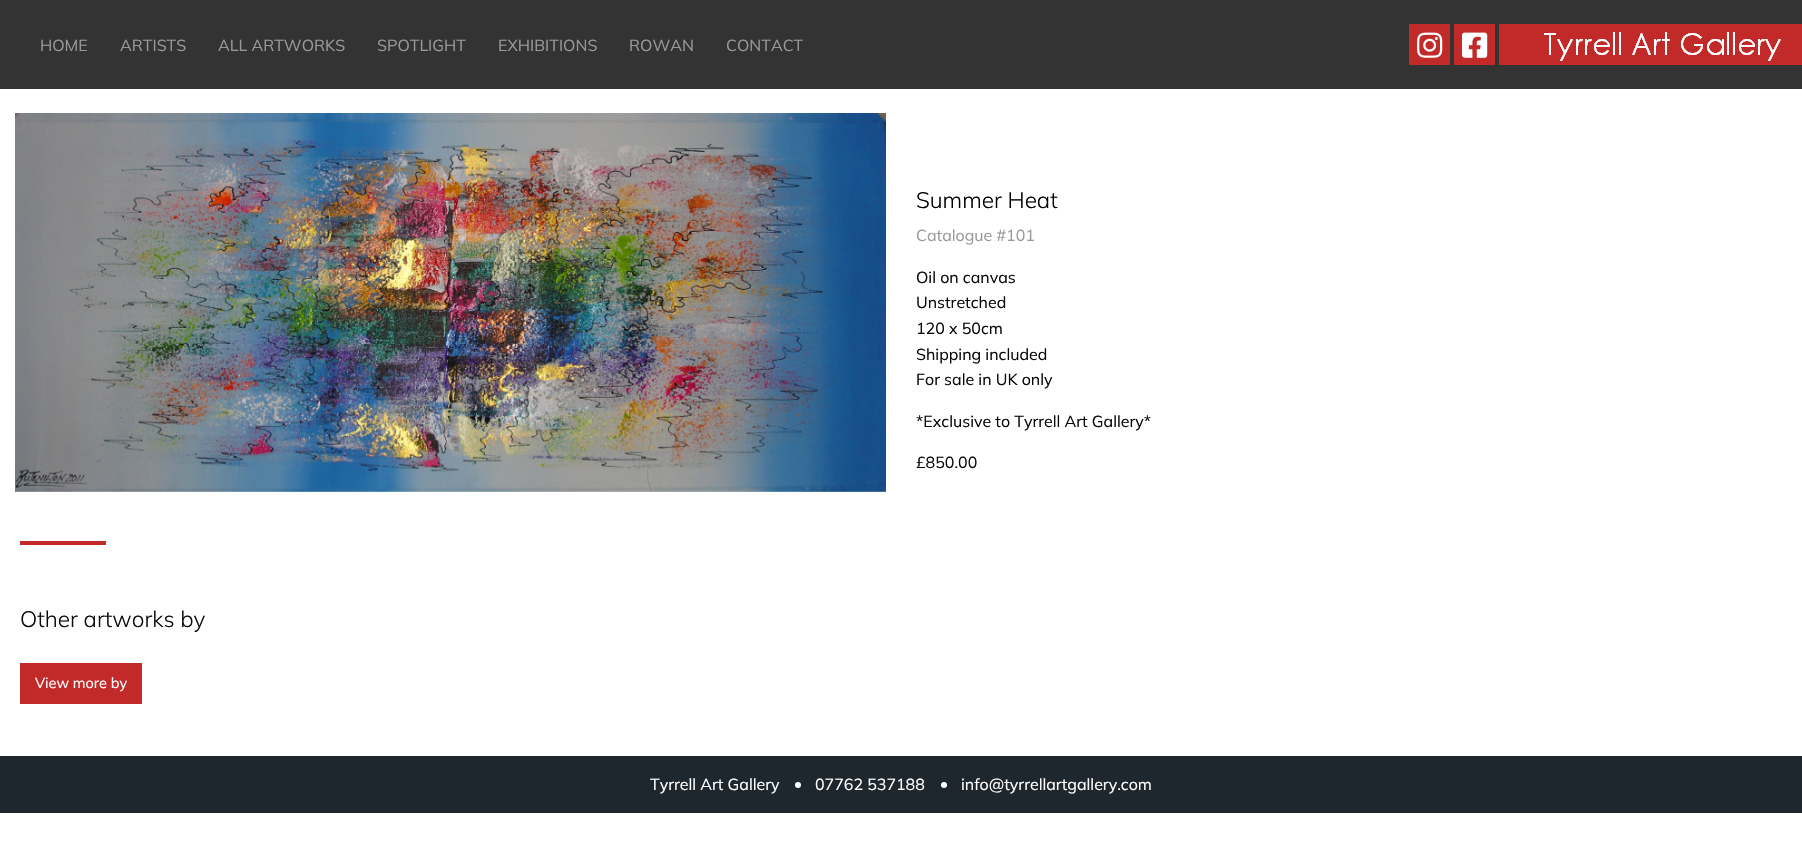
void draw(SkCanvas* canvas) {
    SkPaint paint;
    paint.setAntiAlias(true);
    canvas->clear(0xFFFFFFFF);
    paint.setColor(0xFF333333);
    canvas->drawRect(SkRect::MakeXYWH(0, 0, 1802, 89), paint);
    SkFont font1(fontMgr->matchFamilyStyle("Mulish", SkFontStyle::Normal()), 16);
    font1.setSubpixel(true);
    paint.setColor(0xFF999999);
    canvas->drawString("HOME", 40, 51, font1, paint);
    canvas->drawString("ARTISTS", 120, 51, font1, paint);
    canvas->drawString("ALL ARTWORKS", 218, 51, font1, paint);
    canvas->drawString("SPOTLIGHT", 377, 51, font1, paint);
    canvas->drawString("EXHIBITIONS", 498, 51, font1, paint);
    canvas->drawString("ROWAN", 629, 51, font1, paint);
    canvas->drawString("CONTACT", 726, 51, font1, paint);
    paint.setColor(0xFFC22A29);
    canvas->drawRect(SkRect::MakeXYWH(1409, 24, 41, 41), paint);
    canvas->drawImageRect(SkImages::DeferredFromEncodedData(SkData::MakeFromFileName("img1.png")), SkRect::MakeXYWH(1417, 32, 26, 26), SkSamplingOptions());
    canvas->drawRect(SkRect::MakeXYWH(1454, 24, 41, 41), paint);
    canvas->drawImageRect(SkImages::DeferredFromEncodedData(SkData::MakeFromFileName("img2.png")), SkRect::MakeXYWH(1462, 32, 26, 26), SkSamplingOptions());
    canvas->drawImageRect(SkImages::DeferredFromEncodedData(SkData::MakeFromFileName("img3.png")), SkRect::MakeXYWH(1499, 24, 303, 41), SkSamplingOptions());
    canvas->drawImageRect(SkImages::DeferredFromEncodedData(SkData::MakeFromFileName("img4.png")), SkRect::MakeXYWH(15, 113, 871, 379), SkSamplingOptions());
    SkFont font2(fontMgr->matchFamilyStyle("Mulish", SkFontStyle(300, SkFontStyle::kNormal_Width, SkFontStyle::kUpright_Slant)), 22.5f);
    font2.setSubpixel(true);
    paint.setColor(0xFF000000);
    canvas->drawString("Summer Heat", 916, 208, font2, paint);
    paint.setColor(0xFF999999);
    canvas->drawString("Catalogue #101", 916, 241, font1, paint);
    paint.setColor(0xFF0A0A0A);
    canvas->drawString("Oil on canvas", 916, 283, font1, paint);
    canvas->drawString("Unstretched", 916, 308, font1, paint);
    canvas->drawString("120 x 50cm", 916, 334, font1, paint);
    canvas->drawString("Shipping included", 916, 360, font1, paint);
    canvas->drawString("For sale in UK only", 916, 385, font1, paint);
    canvas->drawString("*Exclusive to Tyrrell Art Gallery*", 916, 427, font1, paint);
    canvas->drawString("£850.00", 916, 468, font1, paint);
    paint.setColor(0xFFC22A29);
    canvas->drawRect(SkRect::MakeXYWH(20, 541, 86, 4), paint);
    paint.setColor(0xFF0A0A0A);
    canvas->drawString("Other artworks by", 20, 627, font2, paint);
    paint.setColor(0xFFC22A29);
    canvas->drawRect(SkRect::MakeXYWH(20, 663, 122, 41), paint);
    SkFont font3(fontMgr->matchFamilyStyle("Mulish", SkFontStyle::Normal()), 14.5f);
    font3.setSubpixel(true);
    paint.setColor(0xFFFFFFFF);
    canvas->drawString("View more by", 35, 688, font3, paint);
    paint.setColor(0xFF1E272E);
    canvas->drawRect(SkRect::MakeXYWH(0, 756, 1802, 57), paint);
    paint.setColor(0xFFFFFFFF);
    canvas->drawString("Tyrrell Art Gallery", 650, 790, font1, paint);
    canvas->drawCircle(798, 785, 3, paint);
    canvas->drawString("07762 537188", 815, 790, font1, paint);
    canvas->drawCircle(944, 785, 3, paint);
    canvas->drawString("info@tyrrellartgallery.com", 961, 790, font1, paint);
}
